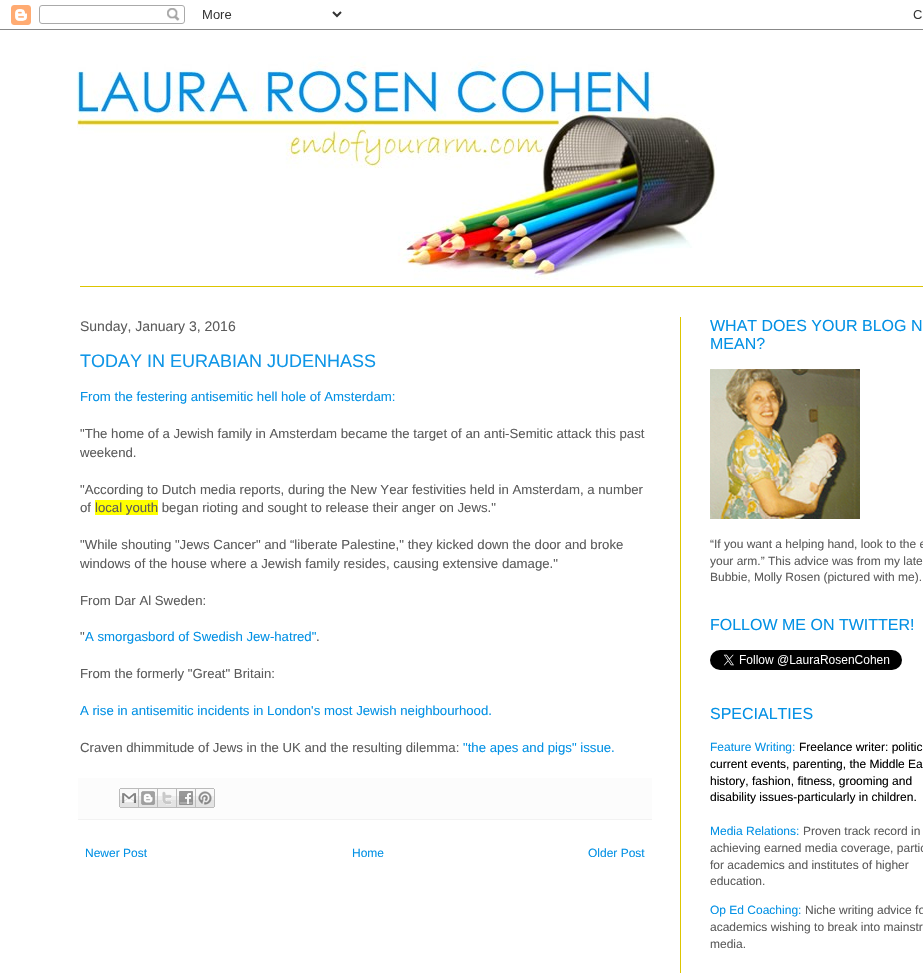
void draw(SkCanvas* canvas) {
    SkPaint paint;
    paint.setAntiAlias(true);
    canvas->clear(0xFFFFFFFF);
    canvas->drawImageRect(SkImages::DeferredFromEncodedData(SkData::MakeFromFileName("img1.png")), SkRect::MakeXYWH(0, 5, 923, 25), SkSamplingOptions());
    canvas->drawImageRect(SkImages::DeferredFromEncodedData(SkData::MakeFromFileName("img2.png")), SkRect::MakeXYWH(77, 56, 640, 224), SkSamplingOptions());
    paint.setColor(0xFFDDC500);
    canvas->drawRect(SkRect::MakeXYWH(80, 286, 843, 1), paint);
    canvas->drawRect(SkRect::MakeXYWH(680, 317, 1, 656), paint);
    SkFont font1(fontMgr->matchFamilyStyle("Liberation Sans", SkFontStyle::Normal()), 14);
    font1.setSubpixel(true);
    paint.setColor(0xFF5C5C5C);
    canvas->drawString("Sunday, January 3, 2016", 80, 331, font1, paint);
    SkFont font2(fontMgr->matchFamilyStyle("Liberation Sans", SkFontStyle::Normal()), 18);
    font2.setSubpixel(true);
    paint.setColor(0xFF0F96E7);
    canvas->drawString("TODAY IN EURABIAN JUDENHASS", 80, 367, font2, paint);
    SkFont font3(fontMgr->matchFamilyStyle("Liberation Sans", SkFontStyle::Normal()), 13.2f);
    font3.setSubpixel(true);
    paint.setColor(0xFF0391E5);
    canvas->drawString("From the festering antisemitic hell hole of Amsterdam:", 80, 401, font3, paint);
    paint.setColor(0xFF5C5C5C);
    canvas->drawString("\"The home of a Jewish family in Amsterdam became the target of an anti-Semitic attack this past", 80, 438, font3, paint);
    canvas->drawString("weekend.", 80, 457, font3, paint);
    canvas->drawString("\"According to Dutch media reports, during the New Year festivities held in Amsterdam, a number", 80, 494, font3, paint);
    canvas->drawString("of", 80, 512, font3, paint);
    paint.setColor(0xFFFFFF00);
    canvas->drawRect(SkRect::MakeXYWH(95, 500, 63, 15), paint);
    paint.setColor(0xFF5C5C5C);
    canvas->drawString("local youth began rioting and sought to release their anger on Jews.\"", 95, 512, font3, paint);
    canvas->drawString("\"While shouting \"Jews Cancer\" and “liberate Palestine,\" they kicked down the door and broke", 80, 549, font3, paint);
    canvas->drawString("windows of the house where a Jewish family resides, causing extensive damage.\"", 80, 568, font3, paint);
    canvas->drawString("From Dar Al Sweden:", 80, 605, font3, paint);
    canvas->drawString("\"", 80, 641, font3, paint);
    paint.setColor(0xFF0391E5);
    canvas->drawString("A smorgasbord of Swedish Jew-hatred\"", 85, 641, font3, paint);
    paint.setColor(0xFF5C5C5C);
    canvas->drawString(".", 316, 641, font3, paint);
    canvas->drawString("From the formerly \"Great\" Britain:", 80, 678, font3, paint);
    paint.setColor(0xFF0391E5);
    canvas->drawString("A rise in antisemitic incidents in London's most Jewish neighbourhood.", 80, 715, font3, paint);
    paint.setColor(0xFF5C5C5C);
    canvas->drawString("Craven dhimmitude of Jews in the UK and the resulting dilemma:", 80, 752, font3, paint);
    paint.setColor(0xFF0391E5);
    canvas->drawString("\"the apes and pigs\" issue.", 463, 752, font3, paint);
    paint.setColor(0xFFFCFCFC);
    canvas->drawRect(SkRect::MakeXYWH(78, 778, 574, 41), paint);
    paint.setColor(0xFFF2F2F2);
    canvas->drawRect(SkRect::MakeXYWH(78, 819, 574, 1), paint);
    canvas->drawImageRect(SkImages::DeferredFromEncodedData(SkData::MakeFromFileName("img3.png")), SkRect::MakeXYWH(119, 788, 20, 20), SkSamplingOptions());
    canvas->drawImageRect(SkImages::DeferredFromEncodedData(SkData::MakeFromFileName("img4.png")), SkRect::MakeXYWH(139, 788, 19, 20), SkSamplingOptions());
    canvas->drawImageRect(SkImages::DeferredFromEncodedData(SkData::MakeFromFileName("img5.png")), SkRect::MakeXYWH(158, 788, 19, 20), SkSamplingOptions());
    canvas->drawImageRect(SkImages::DeferredFromEncodedData(SkData::MakeFromFileName("img6.png")), SkRect::MakeXYWH(177, 788, 19, 20), SkSamplingOptions());
    canvas->drawImageRect(SkImages::DeferredFromEncodedData(SkData::MakeFromFileName("img7.png")), SkRect::MakeXYWH(196, 788, 19, 20), SkSamplingOptions());
    SkFont font4(fontMgr->matchFamilyStyle("Liberation Sans", SkFontStyle::Normal()), 12);
    font4.setSubpixel(true);
    paint.setColor(0xFF0391E5);
    canvas->drawString("Newer Post", 85, 857, font4, paint);
    canvas->drawString("Home", 352, 857, font4, paint);
    canvas->drawString("Older Post", 588, 857, font4, paint);
    SkFont font5(fontMgr->matchFamilyStyle("Liberation Sans", SkFontStyle::Normal()), 16);
    font5.setSubpixel(true);
    canvas->drawString("WHAT DOES YOUR BLOG N", 710, 331, font5, paint);
    canvas->drawString("MEAN?", 710, 349, font5, paint);
    canvas->drawImageRect(SkImages::DeferredFromEncodedData(SkData::MakeFromFileName("img8.png")), SkRect::MakeXYWH(710, 369, 150, 150), SkSamplingOptions());
    paint.setColor(0xFF5C5C5C);
    canvas->drawString("“If you want a helping hand, look to the e", 710, 548, font4, paint);
    canvas->drawString("your arm.” This advice was from my late", 710, 565, font4, paint);
    canvas->drawString("Bubbie, Molly Rosen (pictured with me).", 710, 581, font4, paint);
    paint.setColor(0xFF0391E5);
    canvas->drawString("FOLLOW ME ON TWITTER!", 710, 630, font5, paint);
    canvas->drawImageRect(SkImages::DeferredFromEncodedData(SkData::MakeFromFileName("img9.png")), SkRect::MakeXYWH(710, 650, 192, 20), SkSamplingOptions());
    canvas->drawString("SPECIALTIES", 710, 719, font5, paint);
    canvas->drawString("Feature Writing:", 710, 751, font4, paint);
    paint.setColor(0xFF000000);
    canvas->drawString("Freelance writer: politic", 799, 751, font4, paint);
    canvas->drawString("current events, parenting, the Middle Ea", 710, 768, font4, paint);
    canvas->drawString("history, fashion, fitness, grooming and", 710, 785, font4, paint);
    canvas->drawString("disability issues-particularly in children.", 710, 801, font4, paint);
    paint.setColor(0xFF0391E5);
    canvas->drawString("Media Relations:", 710, 835, font4, paint);
    paint.setColor(0xFF5C5C5C);
    canvas->drawString("Proven track record in", 803, 835, font4, paint);
    canvas->drawString("achieving earned media coverage, partic", 710, 852, font4, paint);
    canvas->drawString("for academics and institutes of higher", 710, 869, font4, paint);
    canvas->drawString("education.", 710, 885, font4, paint);
    paint.setColor(0xFF0391E5);
    canvas->drawString("Op Ed Coaching:", 710, 914, font4, paint);
    paint.setColor(0xFF5C5C5C);
    canvas->drawString("Niche writing advice fo", 805, 914, font4, paint);
    canvas->drawString("academics wishing to break into mainstr", 710, 931, font4, paint);
    canvas->drawString("media.", 710, 948, font4, paint);
}
